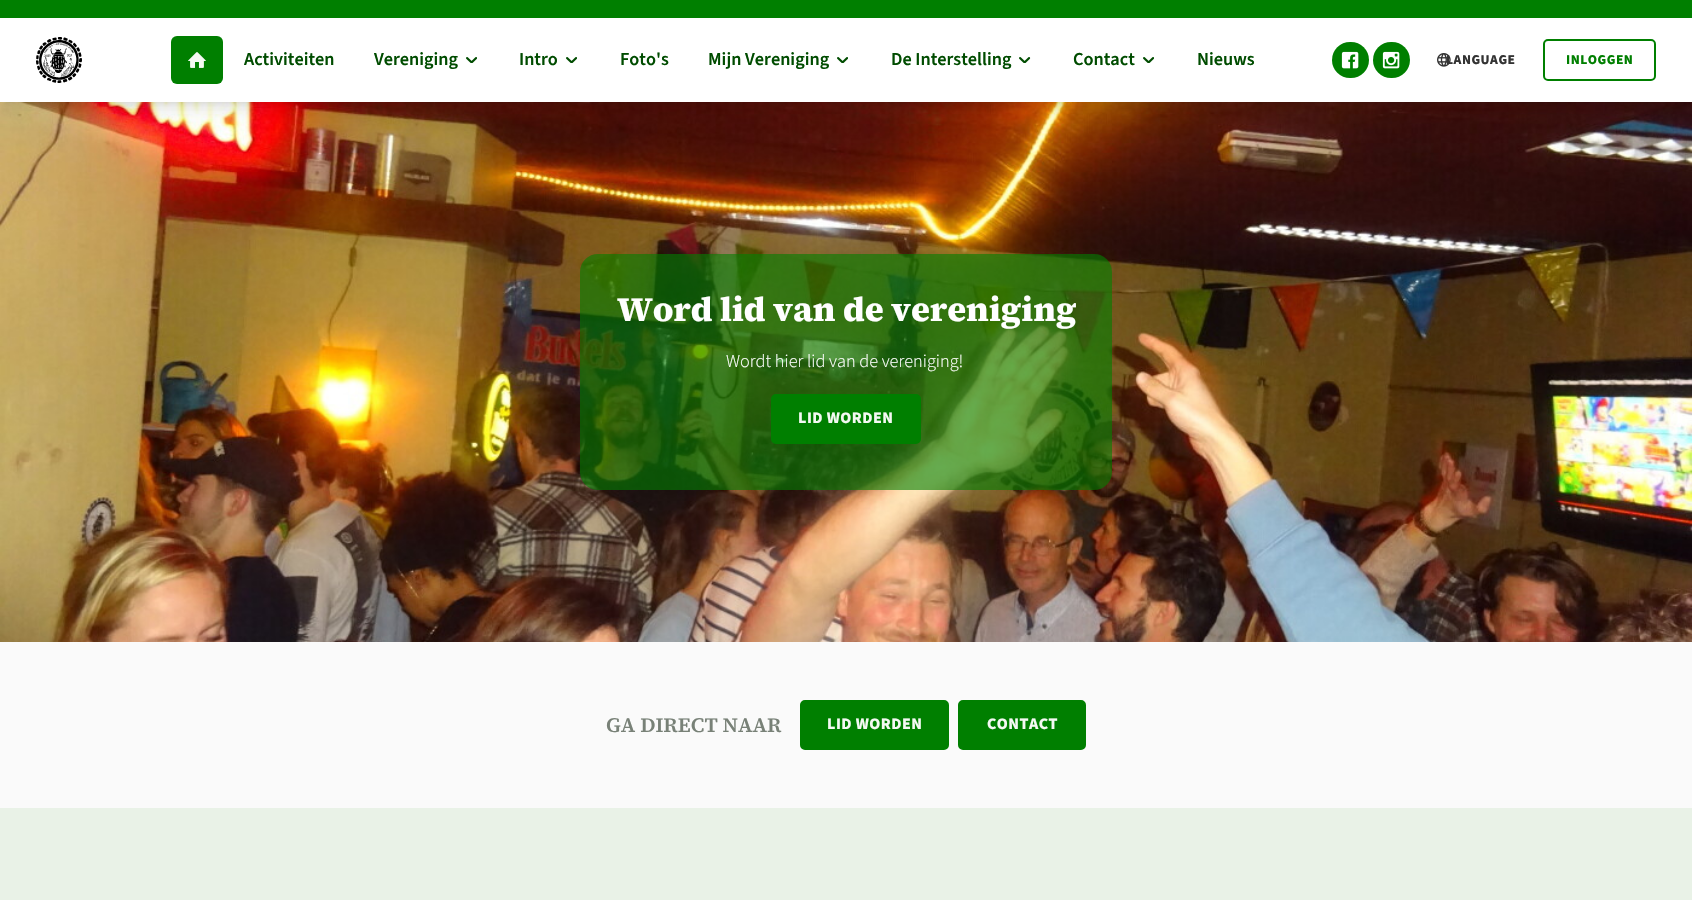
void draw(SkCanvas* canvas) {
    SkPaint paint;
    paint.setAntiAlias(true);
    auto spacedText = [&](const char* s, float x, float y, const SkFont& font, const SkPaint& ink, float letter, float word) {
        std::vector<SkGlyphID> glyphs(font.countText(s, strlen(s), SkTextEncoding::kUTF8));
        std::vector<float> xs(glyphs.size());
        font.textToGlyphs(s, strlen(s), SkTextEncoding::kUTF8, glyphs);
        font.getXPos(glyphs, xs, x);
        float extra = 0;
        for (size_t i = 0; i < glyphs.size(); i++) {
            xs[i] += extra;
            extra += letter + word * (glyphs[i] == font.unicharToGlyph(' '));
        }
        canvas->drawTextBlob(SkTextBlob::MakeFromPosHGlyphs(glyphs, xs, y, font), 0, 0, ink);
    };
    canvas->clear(0xFFFAFAFA);
    canvas->drawImageRect(SkImages::DeferredFromEncodedData(SkData::MakeFromFileName("img8.png")), SkRect::MakeXYWH(0, 102, 1692, 540), SkSamplingOptions());
    paint.setColor(0x1A000000);
    paint.setMaskFilter(SkMaskFilter::MakeBlur(kNormal_SkBlurStyle, 3));
    canvas->drawRect(SkRect::MakeXYWH(4, 8, 1684, 94), paint);
    paint.setMaskFilter(nullptr);
    paint.setMaskFilter(SkMaskFilter::MakeBlur(kNormal_SkBlurStyle, 7.5f));
    canvas->drawRect(SkRect::MakeXYWH(3, 13, 1686, 96), paint);
    paint.setMaskFilter(nullptr);
    paint.setColor(0xFFFFFFFF);
    canvas->drawRect(SkRect::MakeXYWH(0, 18, 1692, 84), paint);
    paint.setColor(0xFF007F00);
    canvas->drawRect(SkRect::MakeXYWH(0, 0, 1692, 18), paint);
    canvas->drawImageRect(SkImages::DeferredFromEncodedData(SkData::MakeFromFileName("img1.png")), SkRect::MakeXYWH(36, 37, 46, 46), SkSamplingOptions());
    canvas->drawRoundRect(SkRect::MakeXYWH(171, 36, 52, 48), 6, 6, paint);
    canvas->drawImageRect(SkImages::DeferredFromEncodedData(SkData::MakeFromFileName("img2.png")), SkRect::MakeXYWH(188, 52, 18, 16), SkSamplingOptions());
    SkFont font1(fontMgr->matchFamilyStyle("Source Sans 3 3", SkFontStyle(200, SkFontStyle::kNormal_Width, SkFontStyle::kUpright_Slant)), 18.25f);
    font1.setSubpixel(true);
    paint.setColor(0xFF004C00);
    canvas->drawString("Activiteiten", 244, 65, font1, paint);
    canvas->drawString("Vereniging", 374, 65, font1, paint);
    canvas->drawImageRect(SkImages::DeferredFromEncodedData(SkData::MakeFromFileName("img3.png")), SkRect::MakeXYWH(466, 57, 11, 6), SkSamplingOptions());
    canvas->drawString("Intro", 519, 65, font1, paint);
    canvas->drawImageRect(SkImages::DeferredFromEncodedData(SkData::MakeFromFileName("img3.png")), SkRect::MakeXYWH(566, 57, 11, 6), SkSamplingOptions());
    canvas->drawString("Foto's", 620, 65, font1, paint);
    canvas->drawString("Mijn Vereniging", 708, 65, font1, paint);
    canvas->drawImageRect(SkImages::DeferredFromEncodedData(SkData::MakeFromFileName("img3.png")), SkRect::MakeXYWH(837, 57, 11, 6), SkSamplingOptions());
    canvas->drawString("De Interstelling", 891, 65, font1, paint);
    canvas->drawImageRect(SkImages::DeferredFromEncodedData(SkData::MakeFromFileName("img4.png")), SkRect::MakeXYWH(1019, 57, 12, 6), SkSamplingOptions());
    canvas->drawString("Contact", 1073, 65, font1, paint);
    canvas->drawImageRect(SkImages::DeferredFromEncodedData(SkData::MakeFromFileName("img3.png")), SkRect::MakeXYWH(1143, 57, 11, 6), SkSamplingOptions());
    canvas->drawString("Nieuws", 1197, 65, font1, paint);
    paint.setColor(0xFF007F00);
    canvas->drawRoundRect(SkRect::MakeXYWH(1332, 42, 37, 36), 18, 18, paint);
    canvas->drawImageRect(SkImages::DeferredFromEncodedData(SkData::MakeFromFileName("img5.png")), SkRect::MakeXYWH(1341, 51, 18, 18), SkSamplingOptions());
    canvas->drawRoundRect(SkRect::MakeXYWH(1373, 42, 37, 36), 18, 18, paint);
    canvas->drawImageRect(SkImages::DeferredFromEncodedData(SkData::MakeFromFileName("img6.png")), SkRect::MakeXYWH(1382, 51, 18, 18), SkSamplingOptions());
    SkFont font2(fontMgr->matchFamilyStyle("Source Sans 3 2", SkFontStyle(200, SkFontStyle::kNormal_Width, SkFontStyle::kUpright_Slant)), 13.5f);
    font2.setSubpixel(true);
    paint.setColor(0xFF333333);
    spacedText("LANGUAGE", 1446, 64, font2, paint, 0.5f, 0);
    canvas->drawImageRect(SkImages::DeferredFromEncodedData(SkData::MakeFromFileName("img7.png")), SkRect::MakeXYWH(1437, 53, 14, 14), SkSamplingOptions());
    paint.setStyle(SkPaint::kStroke_Style);
    paint.setStrokeWidth(2);
    paint.setColor(0xFF007F00);
    canvas->drawRoundRect(SkRect::MakeXYWH(1544, 40, 111, 40), 4, 4, paint);
    paint.setStyle(SkPaint::kFill_Style);
    spacedText("INLOGGEN", 1566, 64, font2, paint, 0.5f, 0);
    paint.setColor(0x99007F00);
    canvas->drawRoundRect(SkRect::MakeXYWH(580, 254, 532, 236), 18, 18, paint);
    SkFont font3(fontMgr->matchFamilyStyle("Source Serif 4", SkFontStyle(800, SkFontStyle::kNormal_Width, SkFontStyle::kUpright_Slant)), 34.25f);
    font3.setSubpixel(true);
    paint.setColor(0xFFFFFFFF);
    canvas->drawString("Word lid van de vereniging", 617, 321, font3, paint);
    SkFont font4(fontMgr->matchFamilyStyle("Source Sans 3", SkFontStyle(200, SkFontStyle::kNormal_Width, SkFontStyle::kUpright_Slant)), 18.25f);
    font4.setSubpixel(true);
    canvas->drawString("Wordt hier lid van de vereniging!", 726, 367, font4, paint);
    paint.setColor(0xFF007F00);
    canvas->drawRoundRect(SkRect::MakeXYWH(772.5f, 395.5f, 147, 47), 3.5f, 3.5f, paint);
    paint.setStyle(SkPaint::kStroke_Style);
    paint.setStrokeWidth(3);
    canvas->drawRoundRect(SkRect::MakeXYWH(772.5f, 395.5f, 147, 47), 3.5f, 3.5f, paint);
    SkFont font5(fontMgr->matchFamilyStyle("Source Sans 3 2", SkFontStyle(200, SkFontStyle::kNormal_Width, SkFontStyle::kUpright_Slant)), 16);
    font5.setSubpixel(true);
    paint.setStyle(SkPaint::kFill_Style);
    paint.setColor(0xFFF4F9F3);
    spacedText("LID WORDEN", 798, 423, font5, paint, 0.5f, 0);
    SkFont font6(fontMgr->matchFamilyStyle("Source Serif 4", SkFontStyle(600, SkFontStyle::kNormal_Width, SkFontStyle::kUpright_Slant)), 20.5f);
    font6.setSubpixel(true);
    paint.setColor(0xFF788177);
    canvas->drawString("GA DIRECT NAAR", 606, 732, font6, paint);
    paint.setColor(0xFF007F00);
    canvas->drawRoundRect(SkRect::MakeXYWH(801.5f, 701.5f, 146, 47), 3.5f, 3.5f, paint);
    paint.setStyle(SkPaint::kStroke_Style);
    canvas->drawRoundRect(SkRect::MakeXYWH(801.5f, 701.5f, 146, 47), 3.5f, 3.5f, paint);
    paint.setStyle(SkPaint::kFill_Style);
    paint.setColor(0xFFF4F9F3);
    spacedText("LID WORDEN", 827, 729, font5, paint, 0.5f, 0);
    paint.setColor(0xFF007F00);
    canvas->drawRoundRect(SkRect::MakeXYWH(959.5f, 701.5f, 125, 47), 3.5f, 3.5f, paint);
    paint.setStyle(SkPaint::kStroke_Style);
    canvas->drawRoundRect(SkRect::MakeXYWH(959.5f, 701.5f, 125, 47), 3.5f, 3.5f, paint);
    paint.setStyle(SkPaint::kFill_Style);
    paint.setColor(0xFFF4F9F3);
    spacedText("CONTACT", 987, 729, font5, paint, 0.5f, 0);
    paint.setColor(0xFFE9F2E7);
    canvas->drawRect(SkRect::MakeXYWH(0, 808, 1692, 92), paint);
}
